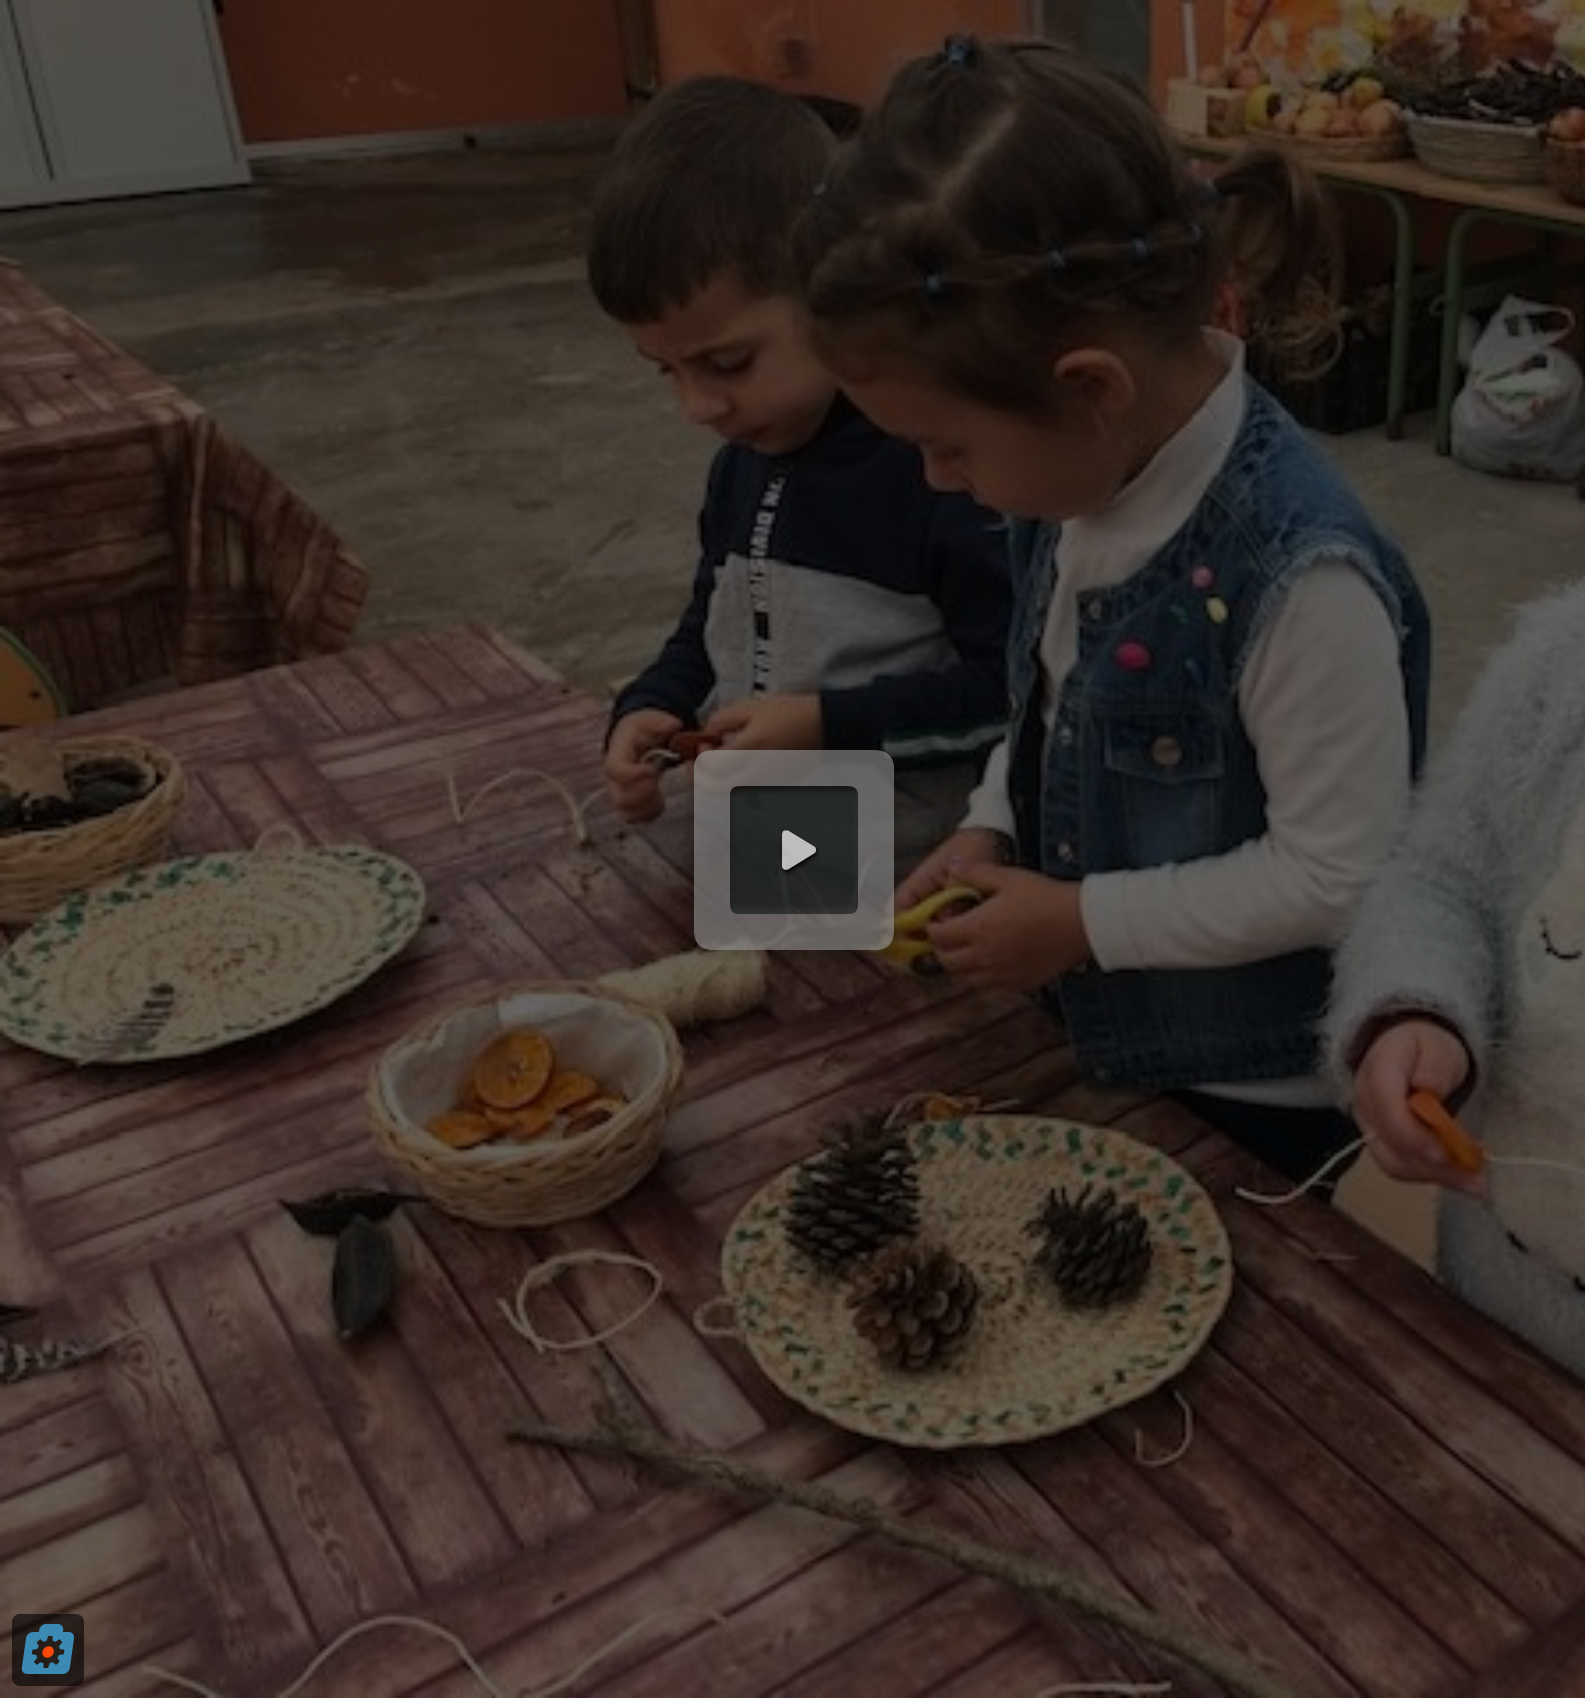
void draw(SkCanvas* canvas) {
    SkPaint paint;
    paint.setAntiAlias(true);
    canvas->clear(0xFFFFFFFF);
    canvas->drawImageRect(SkImages::DeferredFromEncodedData(SkData::MakeFromFileName("img1.png")), SkRect::MakeXYWH(0, 0, 1585, 1698), SkSamplingOptions());
    canvas->drawImageRect(SkImages::DeferredFromEncodedData(SkData::MakeFromFileName("img2.png")), SkRect::MakeXYWH(685, 739, 219, 222), SkSamplingOptions());
    paint.setColor(0x99000000);
    canvas->drawRoundRect(SkRect::MakeXYWH(12, 1614, 72, 72), 8, 8, paint);
    canvas->drawImageRect(SkImages::DeferredFromEncodedData(SkData::MakeFromFileName("img3.png")), SkRect::MakeXYWH(21, 1624, 54, 50), SkSamplingOptions());
}
